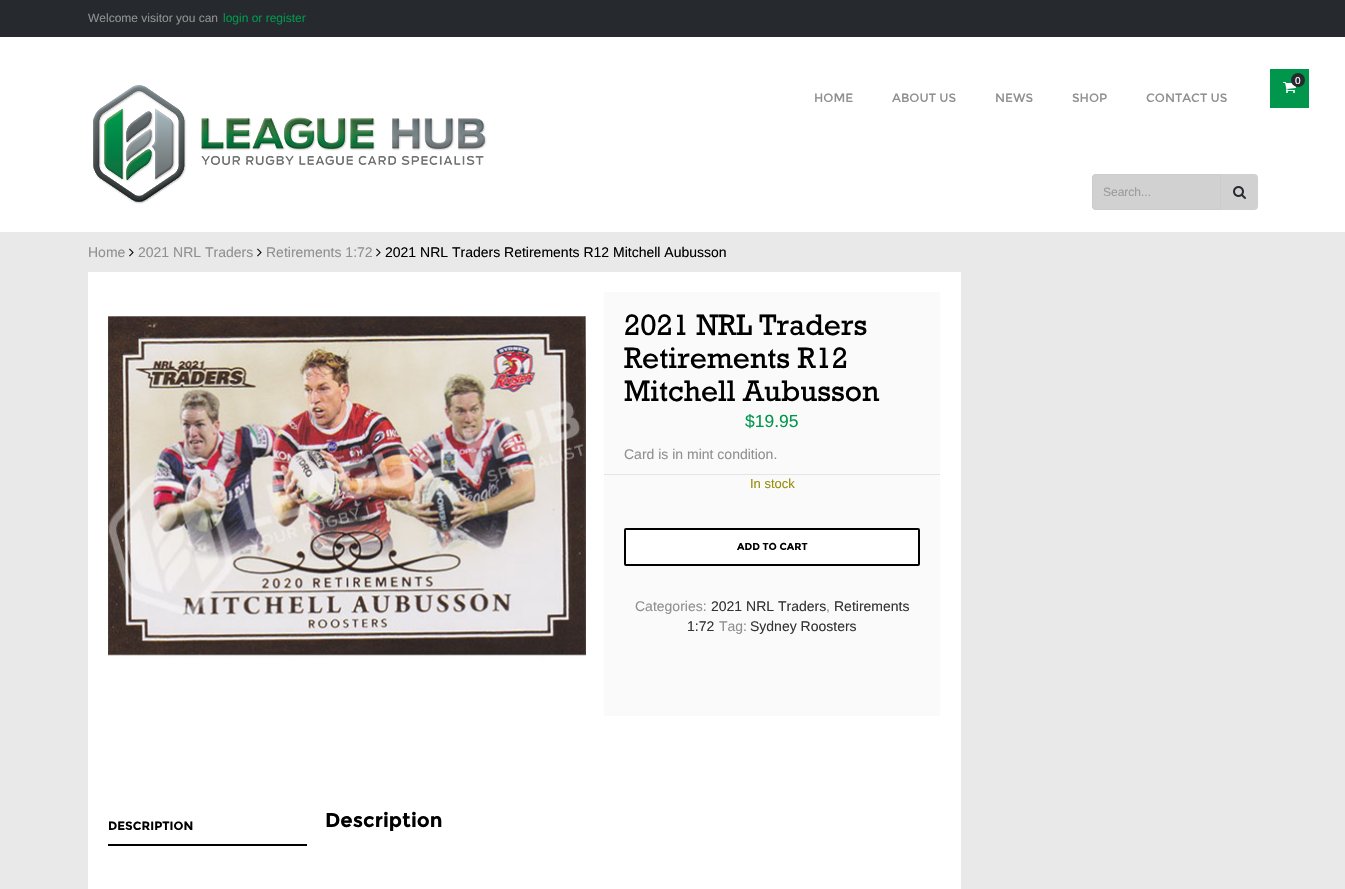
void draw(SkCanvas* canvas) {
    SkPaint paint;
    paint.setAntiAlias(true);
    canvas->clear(0xFFE9E9E9);
    paint.setColor(0xFF262A2E);
    canvas->drawRect(SkRect::MakeXYWH(0, 0, 1345, 37), paint);
    SkFont font1(fontMgr->matchFamilyStyle("Liberation Sans", SkFontStyle::Normal()), 12);
    font1.setSubpixel(true);
    paint.setColor(0xFF909090);
    canvas->drawString("Welcome visitor you can", 88, 22, font1, paint);
    paint.setColor(0xFF00974C);
    canvas->drawString("login or register", 223, 22, font1, paint);
    paint.setColor(0xFFFFFFFF);
    canvas->drawRect(SkRect::MakeXYWH(0, 37, 1345, 195), paint);
    paint.setColor(0xFF00974C);
    canvas->drawRect(SkRect::MakeXYWH(1270, 69, 39, 39), paint);
    canvas->drawImageRect(SkImages::DeferredFromEncodedData(SkData::MakeFromFileName("img1.png")), SkRect::MakeXYWH(1283, 82, 13, 11), SkSamplingOptions());
    paint.setColor(0xFF262A2E);
    canvas->drawCircle(1298, 80, 7, paint);
    SkFont font2(fontMgr->matchFamilyStyle("Liberation Sans", SkFontStyle::Normal()), 10);
    font2.setSubpixel(true);
    paint.setColor(0xFFFFFFFF);
    canvas->drawString("0", 1295, 84, font2, paint);
    canvas->drawImageRect(SkImages::DeferredFromEncodedData(SkData::MakeFromFileName("img2.png")), SkRect::MakeXYWH(93, 85, 394, 119), SkSamplingOptions());
    SkFont font3(fontMgr->matchFamilyStyle("Montserrat", SkFontStyle::Normal()), 12);
    font3.setSubpixel(true);
    paint.setColor(0xFF909090);
    canvas->drawString("HOME", 814, 102, font3, paint);
    canvas->drawString("ABOUT US", 892, 102, font3, paint);
    canvas->drawString("NEWS", 995, 102, font3, paint);
    canvas->drawString("SHOP", 1072, 102, font3, paint);
    canvas->drawString("CONTACT US", 1146, 102, font3, paint);
    paint.setColor(0xFFD1D1D1);
    canvas->drawRoundRect(SkRect::MakeXYWH(1092, 174, 166, 36), 4, 4, paint);
    paint.setStyle(SkPaint::kStroke_Style);
    paint.setStrokeWidth(1);
    paint.setColor(0xFFCCCCCC);
    canvas->drawPath(SkPathBuilder().moveTo(1096, 174.5f).lineTo(1220.5f, 174.5f).lineTo(1220.5f, 209.5f).lineTo(1096, 209.5f).cubicTo(1094, 209.5f, 1092.5f, 208, 1092.5f, 206).lineTo(1092.5f, 178).cubicTo(1092.5f, 176, 1094, 174.5f, 1096, 174.5f).close().detach(), paint);
    paint.setStyle(SkPaint::kFill_Style);
    paint.setColor(0xFF999999);
    canvas->drawString("Search...", 1103, 196, font1, paint);
    canvas->drawImageRect(SkImages::DeferredFromEncodedData(SkData::MakeFromFileName("img3.png")), SkRect::MakeXYWH(1233, 186, 13, 13), SkSamplingOptions());
    SkFont font4(fontMgr->matchFamilyStyle("Liberation Sans", SkFontStyle::Normal()), 14);
    font4.setSubpixel(true);
    paint.setColor(0xFF909090);
    canvas->drawString("Home", 88, 257, font4, paint);
    canvas->drawImageRect(SkImages::DeferredFromEncodedData(SkData::MakeFromFileName("img4.png")), SkRect::MakeXYWH(129, 248, 5, 9), SkSamplingOptions());
    canvas->drawString("2021 NRL Traders", 138, 257, font4, paint);
    canvas->drawImageRect(SkImages::DeferredFromEncodedData(SkData::MakeFromFileName("img4.png")), SkRect::MakeXYWH(257, 248, 5, 9), SkSamplingOptions());
    canvas->drawString("Retirements 1:72", 266, 257, font4, paint);
    canvas->drawImageRect(SkImages::DeferredFromEncodedData(SkData::MakeFromFileName("img4.png")), SkRect::MakeXYWH(376, 248, 5, 9), SkSamplingOptions());
    paint.setColor(0xFF000000);
    canvas->drawString("2021 NRL Traders Retirements R12 Mitchell Aubusson", 385, 257, font4, paint);
    paint.setColor(0xFFFFFFFF);
    canvas->drawRect(SkRect::MakeXYWH(88, 272, 873, 617), paint);
    canvas->drawImageRect(SkImages::DeferredFromEncodedData(SkData::MakeFromFileName("img5.png")), SkRect::MakeXYWH(108, 316, 478, 343), SkSamplingOptions());
    paint.setColor(0xFFFAFAFA);
    canvas->drawRect(SkRect::MakeXYWH(604, 292, 336, 424), paint);
    SkFont font5(fontMgr->matchFamilyStyle("Rockwell", SkFontStyle::Normal()), 30);
    font5.setSubpixel(true);
    paint.setColor(0xFF000000);
    canvas->drawString("2021 NRL Traders", 624, 335, font5, paint);
    canvas->drawString("Retirements R12", 624, 368, font5, paint);
    canvas->drawString("Mitchell Aubusson", 624, 401, font5, paint);
    SkFont font6(fontMgr->matchFamilyStyle("Liberation Sans", SkFontStyle::Normal()), 17.5f);
    font6.setSubpixel(true);
    paint.setColor(0xFF00974C);
    canvas->drawString("$19.95", 745, 427, font6, paint);
    paint.setColor(0xFFE5E5E5);
    canvas->drawRect(SkRect::MakeXYWH(604, 474, 336, 1), paint);
    paint.setColor(0xFF909090);
    canvas->drawString("Card is in mint condition.", 624, 459, font4, paint);
    SkFont font7(fontMgr->matchFamilyStyle("Liberation Sans", SkFontStyle::Normal()), 13);
    font7.setSubpixel(true);
    paint.setColor(0xFF958E09);
    canvas->drawString("In stock", 750, 488, font7, paint);
    paint.setColor(0xFFFFFFFF);
    canvas->drawRoundRect(SkRect::MakeXYWH(625, 529, 294, 36), 1, 1, paint);
    paint.setStyle(SkPaint::kStroke_Style);
    paint.setStrokeWidth(2);
    paint.setColor(0xFF000000);
    canvas->drawRoundRect(SkRect::MakeXYWH(625, 529, 294, 36), 1, 1, paint);
    SkFont font8(fontMgr->matchFamilyStyle("Montserrat", SkFontStyle::Bold()), 10);
    font8.setSubpixel(true);
    paint.setStyle(SkPaint::kFill_Style);
    canvas->drawString("ADD TO CART", 737, 550, font8, paint);
    paint.setColor(0xFF909090);
    canvas->drawString("Categories:", 635, 611, font4, paint);
    paint.setColor(0xFF333333);
    canvas->drawString("2021 NRL Traders", 711, 611, font4, paint);
    paint.setColor(0xFF909090);
    canvas->drawString(",", 826, 611, font4, paint);
    paint.setColor(0xFF333333);
    canvas->drawString("Retirements", 834, 611, font4, paint);
    canvas->drawString("1:72", 687, 631, font4, paint);
    paint.setColor(0xFF909090);
    canvas->drawString("Tag:", 719, 631, font4, paint);
    paint.setColor(0xFF333333);
    canvas->drawString("Sydney Roosters", 750, 631, font4, paint);
    paint.setColor(0xFF000000);
    canvas->drawRect(SkRect::MakeXYWH(108, 844, 199, 2), paint);
    SkFont font9(fontMgr->matchFamilyStyle("Montserrat", SkFontStyle::Bold()), 12);
    font9.setSubpixel(true);
    canvas->drawString("DESCRIPTION", 108, 830, font9, paint);
    SkFont font10(fontMgr->matchFamilyStyle("Montserrat", SkFontStyle::Bold()), 20);
    font10.setSubpixel(true);
    canvas->drawString("Description", 325, 827, font10, paint);
}
